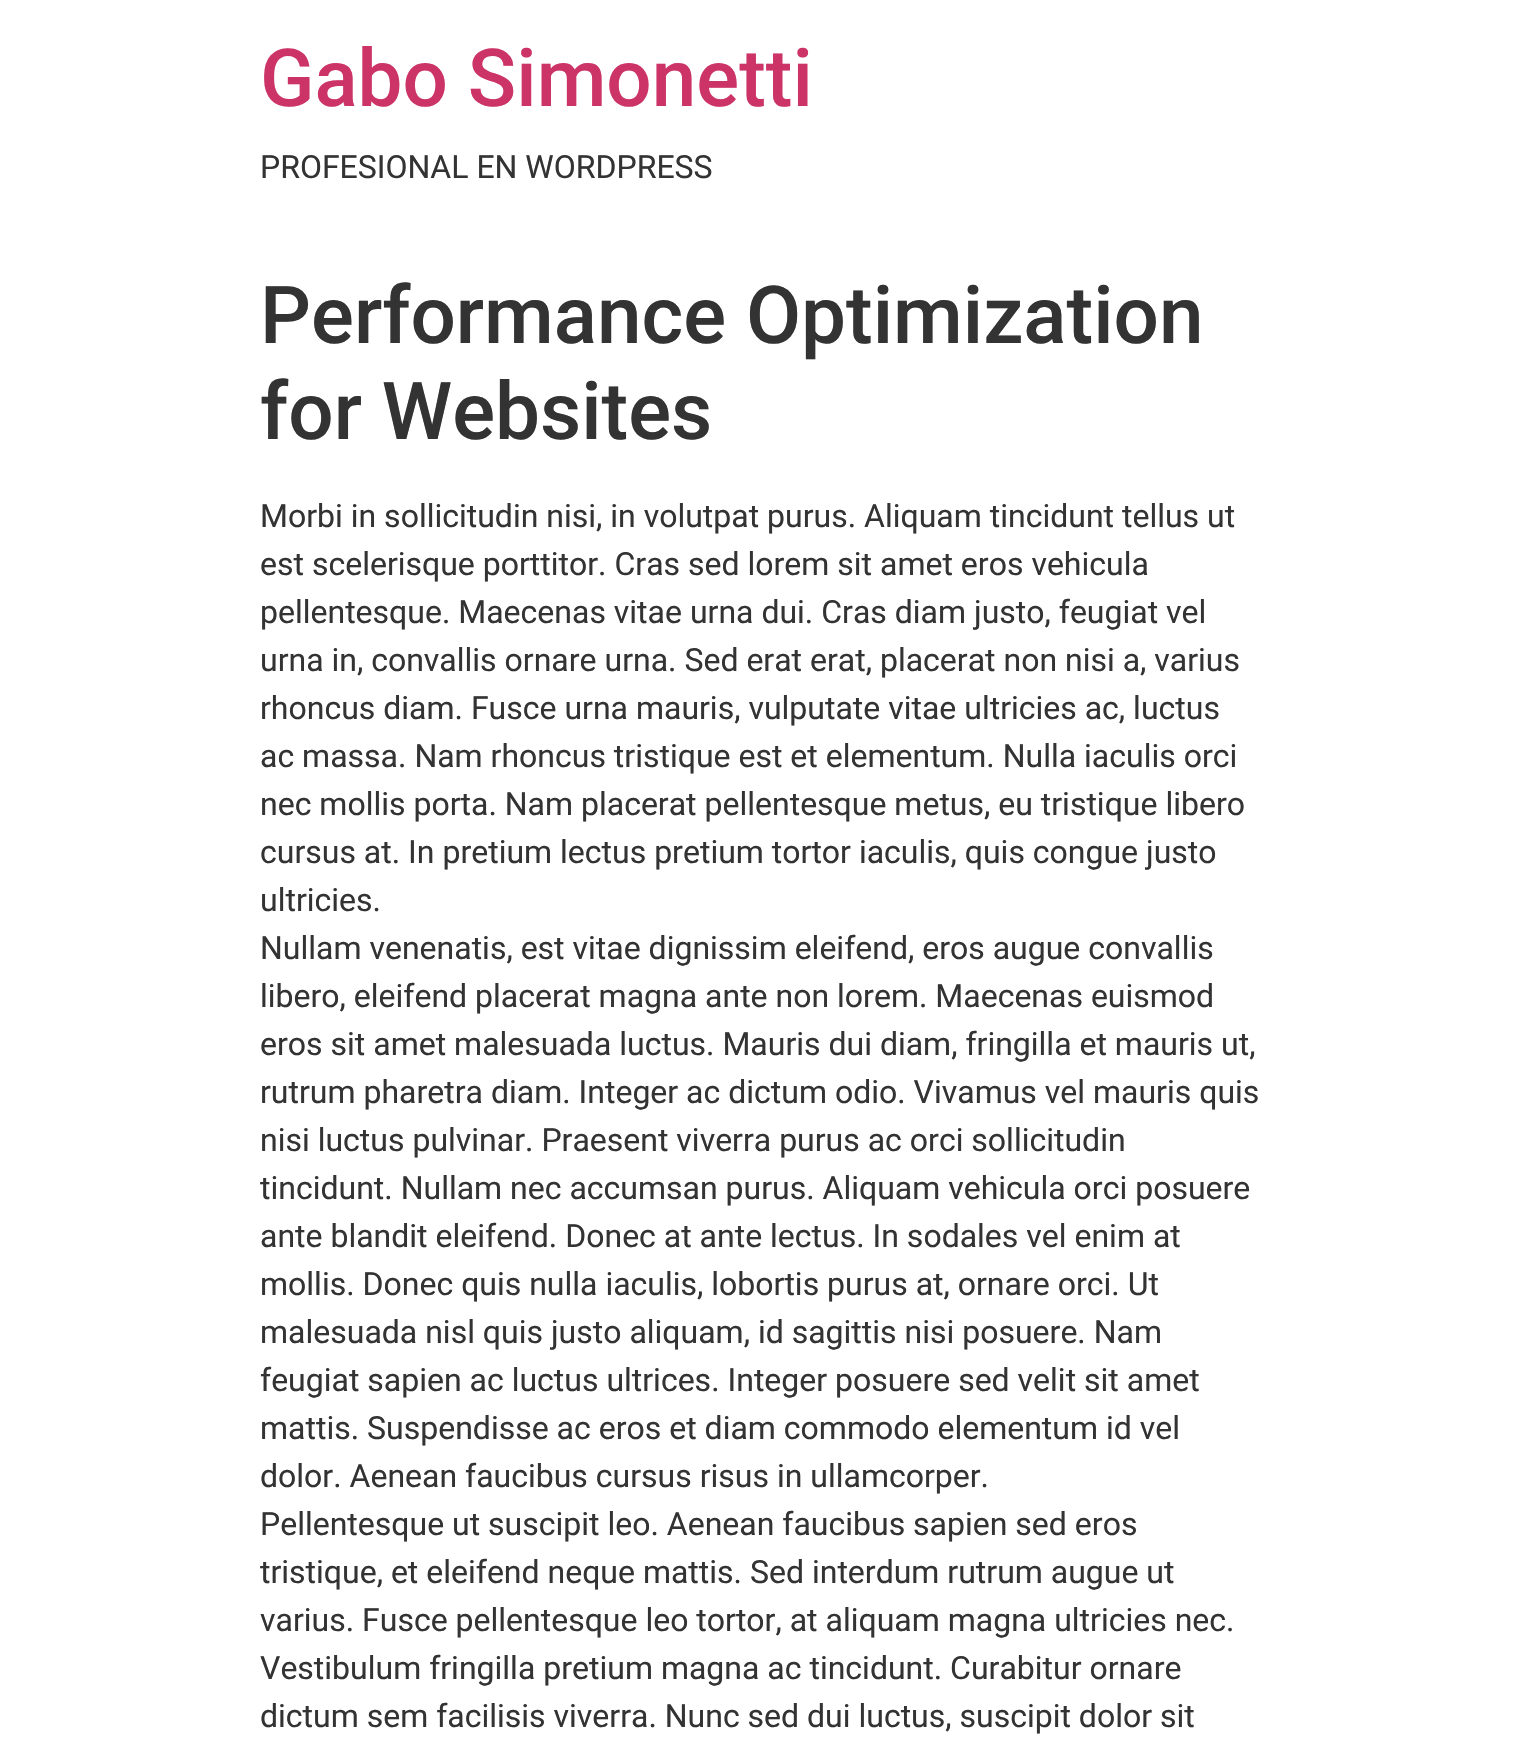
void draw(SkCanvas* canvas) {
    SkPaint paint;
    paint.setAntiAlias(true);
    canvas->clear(0xFFFFFFFF);
    SkFont font1(fontMgr->matchFamilyStyle("Roboto", SkFontStyle(500, SkFontStyle::kNormal_Width, SkFontStyle::kUpright_Slant)), 80);
    font1.setSubpixel(true);
    paint.setColor(0xFFCC3366);
    canvas->drawString("Gabo Simonetti", 260, 106, font1, paint);
    SkFont font2(fontMgr->matchFamilyStyle("Roboto", SkFontStyle::Normal()), 32);
    font2.setSubpixel(true);
    paint.setColor(0xFF333333);
    canvas->drawString("PROFESIONAL EN WORDPRESS", 260, 178, font2, paint);
    canvas->drawString("Performance Optimization", 260, 343, font1, paint);
    canvas->drawString("for Websites", 260, 439, font1, paint);
    canvas->drawString("Morbi in sollicitudin nisi, in volutpat purus. Aliquam tincidunt tellus ut", 260, 527, font2, paint);
    canvas->drawString("est scelerisque porttitor. Cras sed lorem sit amet eros vehicula", 260, 575, font2, paint);
    canvas->drawString("pellentesque. Maecenas vitae urna dui. Cras diam justo, feugiat vel", 260, 623, font2, paint);
    canvas->drawString("urna in, convallis ornare urna. Sed erat erat, placerat non nisi a, varius", 260, 671, font2, paint);
    canvas->drawString("rhoncus diam. Fusce urna mauris, vulputate vitae ultricies ac, luctus", 260, 719, font2, paint);
    canvas->drawString("ac massa. Nam rhoncus tristique est et elementum. Nulla iaculis orci", 260, 767, font2, paint);
    canvas->drawString("nec mollis porta. Nam placerat pellentesque metus, eu tristique libero", 260, 815, font2, paint);
    canvas->drawString("cursus at. In pretium lectus pretium tortor iaculis, quis congue justo", 260, 863, font2, paint);
    canvas->drawString("ultricies.", 260, 911, font2, paint);
    canvas->drawString("Nullam venenatis, est vitae dignissim eleifend, eros augue convallis", 260, 959, font2, paint);
    canvas->drawString("libero, eleifend placerat magna ante non lorem. Maecenas euismod", 260, 1007, font2, paint);
    canvas->drawString("eros sit amet malesuada luctus. Mauris dui diam, fringilla et mauris ut,", 260, 1055, font2, paint);
    canvas->drawString("rutrum pharetra diam. Integer ac dictum odio. Vivamus vel mauris quis", 260, 1103, font2, paint);
    canvas->drawString("nisi luctus pulvinar. Praesent viverra purus ac orci sollicitudin", 260, 1151, font2, paint);
    canvas->drawString("tincidunt. Nullam nec accumsan purus. Aliquam vehicula orci posuere", 260, 1199, font2, paint);
    canvas->drawString("ante blandit eleifend. Donec at ante lectus. In sodales vel enim at", 260, 1247, font2, paint);
    canvas->drawString("mollis. Donec quis nulla iaculis, lobortis purus at, ornare orci. Ut", 260, 1295, font2, paint);
    canvas->drawString("malesuada nisl quis justo aliquam, id sagittis nisi posuere. Nam", 260, 1343, font2, paint);
    canvas->drawString("feugiat sapien ac luctus ultrices. Integer posuere sed velit sit amet", 260, 1391, font2, paint);
    canvas->drawString("mattis. Suspendisse ac eros et diam commodo elementum id vel", 260, 1439, font2, paint);
    canvas->drawString("dolor. Aenean faucibus cursus risus in ullamcorper.", 260, 1487, font2, paint);
    canvas->drawString("Pellentesque ut suscipit leo. Aenean faucibus sapien sed eros", 260, 1535, font2, paint);
    canvas->drawString("tristique, et eleifend neque mattis. Sed interdum rutrum augue ut", 260, 1583, font2, paint);
    canvas->drawString("varius. Fusce pellentesque leo tortor, at aliquam magna ultricies nec.", 260, 1631, font2, paint);
    canvas->drawString("Vestibulum fringilla pretium magna ac tincidunt. Curabitur ornare", 260, 1679, font2, paint);
    canvas->drawString("dictum sem facilisis viverra. Nunc sed dui luctus, suscipit dolor sit", 260, 1727, font2, paint);
}
